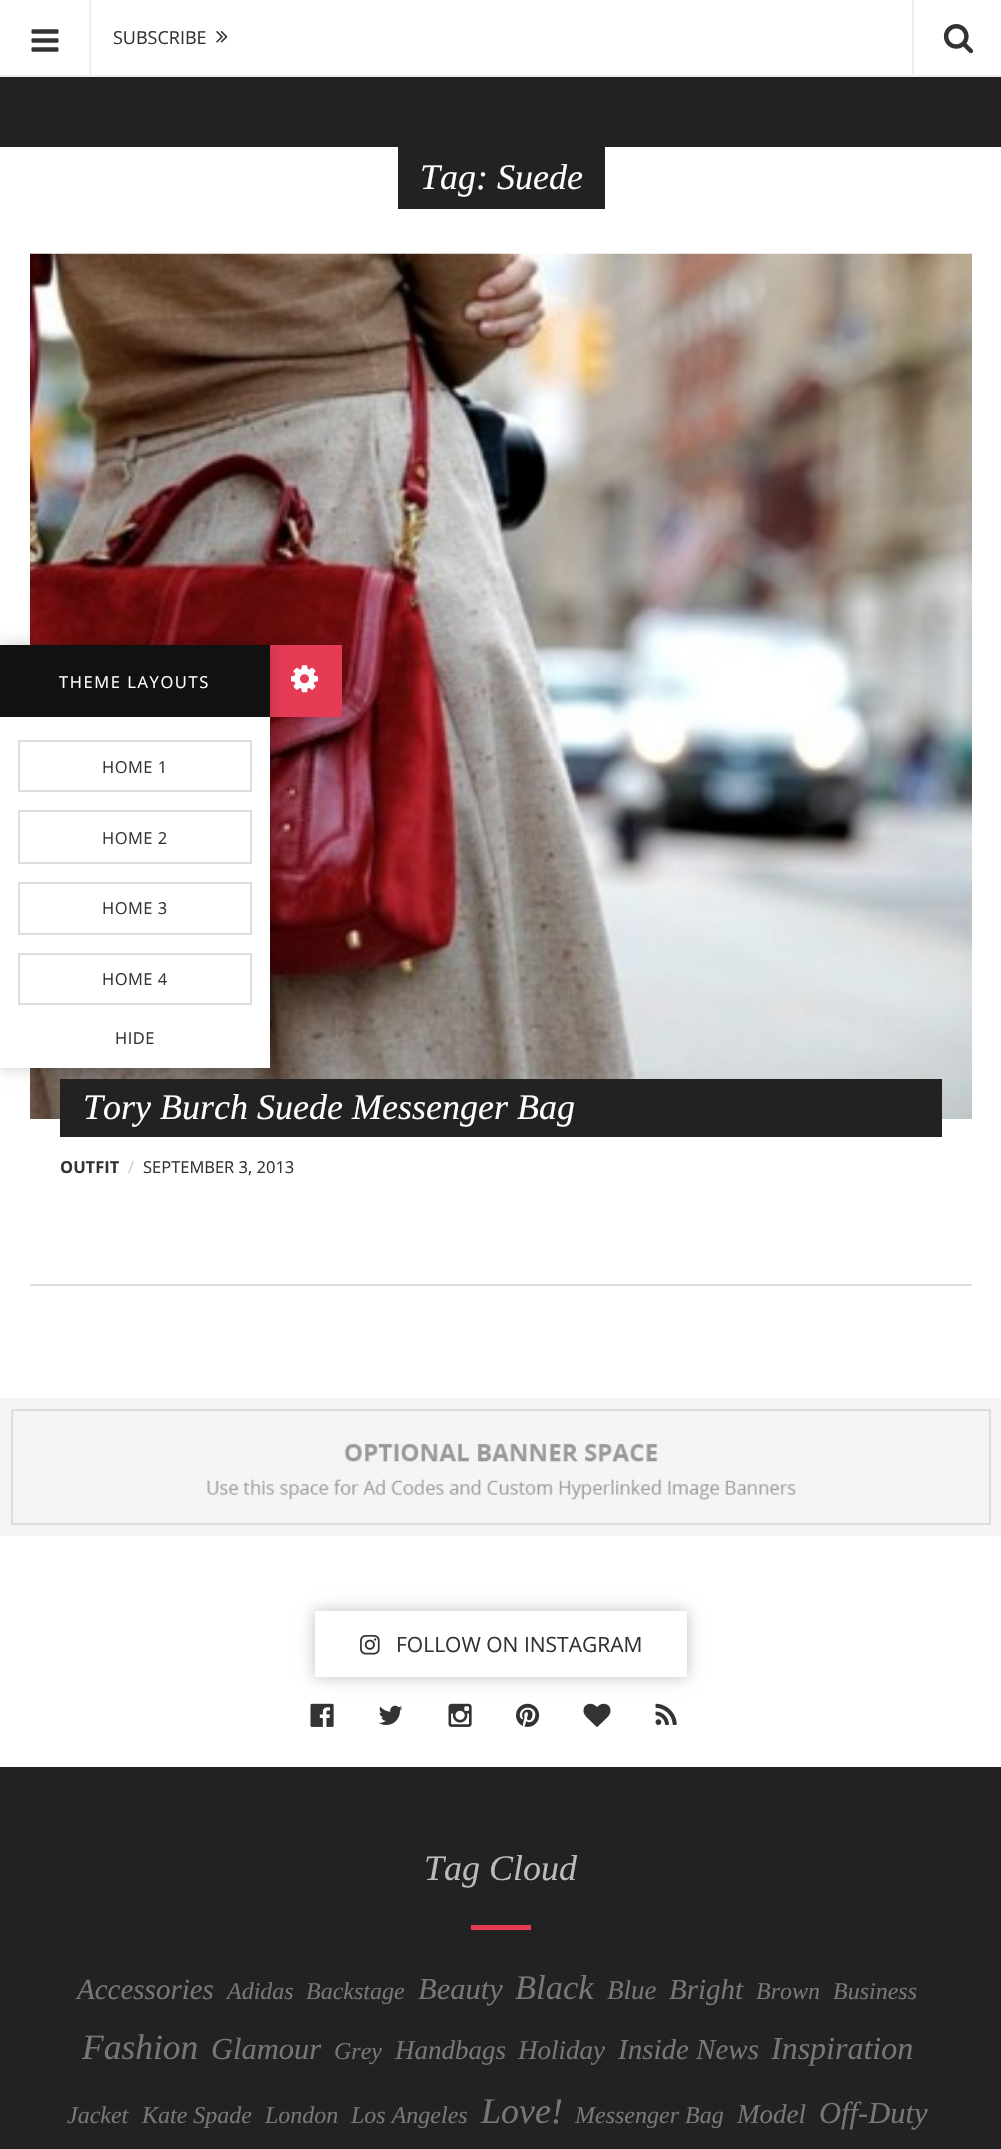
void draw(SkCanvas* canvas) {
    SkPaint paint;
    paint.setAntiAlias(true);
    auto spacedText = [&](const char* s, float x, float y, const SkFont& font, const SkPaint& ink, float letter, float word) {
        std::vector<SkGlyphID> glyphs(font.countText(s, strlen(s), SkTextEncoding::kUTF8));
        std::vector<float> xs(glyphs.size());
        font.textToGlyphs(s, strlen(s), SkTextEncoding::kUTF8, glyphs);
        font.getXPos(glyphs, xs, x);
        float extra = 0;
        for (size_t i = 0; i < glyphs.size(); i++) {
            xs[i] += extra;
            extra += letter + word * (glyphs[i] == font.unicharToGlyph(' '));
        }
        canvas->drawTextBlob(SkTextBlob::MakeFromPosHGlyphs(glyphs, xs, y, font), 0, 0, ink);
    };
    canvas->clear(0xFFFFFFFF);
    paint.setColor(0xFFEEEEEE);
    canvas->drawRect(SkRect::MakeXYWH(0, 75, 1001, 2), paint);
    canvas->drawRect(SkRect::MakeXYWH(89, 0, 2, 75), paint);
    canvas->drawImageRect(SkImages::DeferredFromEncodedData(SkData::MakeFromFileName("img1.png")), SkRect::MakeXYWH(31, 29, 28, 23), SkSamplingOptions());
    SkFont font1(fontMgr->matchFamilyStyle("Open Sans", SkFontStyle::Normal()), 18);
    font1.setSubpixel(true);
    paint.setColor(0xFF333333);
    canvas->drawString("SUBSCRIBE", 113, 44, font1, paint);
    canvas->drawImageRect(SkImages::DeferredFromEncodedData(SkData::MakeFromFileName("img2.png")), SkRect::MakeXYWH(216, 31, 12, 12), SkSamplingOptions());
    paint.setColor(0xFFEEEEEE);
    canvas->drawRect(SkRect::MakeXYWH(912, 0, 2, 75), paint);
    canvas->drawImageRect(SkImages::DeferredFromEncodedData(SkData::MakeFromFileName("img3.png")), SkRect::MakeXYWH(943, 24, 31, 30), SkSamplingOptions());
    paint.setColor(0xFF222222);
    canvas->drawRect(SkRect::MakeXYWH(0, 77, 1001, 70), paint);
    canvas->drawRect(SkRect::MakeXYWH(398, 147, 207, 62), paint);
    SkFont font2(fontMgr->matchFamilyStyle("Liberation Serif", SkFontStyle::Italic()), 36);
    font2.setSubpixel(true);
    paint.setColor(0xFFFFFFFF);
    canvas->drawString("Tag: Suede", 420, 189, font2, paint);
    canvas->drawImageRect(SkImages::DeferredFromEncodedData(SkData::MakeFromFileName("img4.png")), SkRect::MakeXYWH(30, 253, 942, 866), SkSamplingOptions());
    paint.setColor(0xFF222222);
    canvas->drawRect(SkRect::MakeXYWH(60, 1079, 882, 58), paint);
    paint.setColor(0xFFFFFFFF);
    canvas->drawString("Tory Burch Suede Messenger Bag", 83, 1119, font2, paint);
    SkFont font3(fontMgr->matchFamilyStyle("Open Sans", SkFontStyle::Bold()), 16.5f);
    font3.setSubpixel(true);
    paint.setColor(0xFF333333);
    canvas->drawString("OUTFIT", 60, 1173, font3, paint);
    SkFont font4(fontMgr->matchFamilyStyle("Open Sans", SkFontStyle::Normal()), 16.5f);
    font4.setSubpixel(true);
    paint.setColor(0xFFCCCCCC);
    canvas->drawString("/", 128, 1173, font4, paint);
    paint.setColor(0xFF333333);
    canvas->drawString("SEPTEMBER 3, 2013", 143, 1173, font4, paint);
    paint.setColor(0xFFDDDDDD);
    canvas->drawRect(SkRect::MakeXYWH(30, 1284, 942, 2), paint);
    paint.setColor(0x33000000);
    paint.setMaskFilter(SkMaskFilter::MakeBlur(kNormal_SkBlurStyle, 7.5f));
    canvas->drawRect(SkRect::MakeXYWH(270, 645, 72, 72), paint);
    paint.setMaskFilter(nullptr);
    paint.setColor(0xFFE53B55);
    canvas->drawRect(SkRect::MakeXYWH(270, 645, 72, 72), paint);
    canvas->drawImageRect(SkImages::DeferredFromEncodedData(SkData::MakeFromFileName("img5.png")), SkRect::MakeXYWH(291, 665, 27, 28), SkSamplingOptions());
    paint.setColor(0x33000000);
    paint.setMaskFilter(SkMaskFilter::MakeBlur(kNormal_SkBlurStyle, 7.5f));
    canvas->drawRect(SkRect::MakeXYWH(0, 645, 270, 423), paint);
    paint.setMaskFilter(nullptr);
    paint.setColor(0xFFFFFFFF);
    canvas->drawRect(SkRect::MakeXYWH(0, 717, 270, 351), paint);
    paint.setColor(0xFF111111);
    canvas->drawRect(SkRect::MakeXYWH(0, 645, 270, 72), paint);
    paint.setColor(0xFFFFFFFF);
    spacedText("THEME LAYOUTS", 59, 688, font4, paint, 1.6f, 0);
    paint.setStyle(SkPaint::kStroke_Style);
    paint.setStrokeWidth(2);
    paint.setColor(0xFFDDDDDD);
    canvas->drawRect(SkRect::MakeXYWH(19, 741, 232, 50), paint);
    paint.setStyle(SkPaint::kFill_Style);
    paint.setColor(0xFF33333A);
    spacedText("HOME 1", 102, 773, font4, paint, 0.5f, 0);
    paint.setStyle(SkPaint::kStroke_Style);
    paint.setColor(0xFFDDDDDD);
    canvas->drawRect(SkRect::MakeXYWH(19, 811, 232, 52), paint);
    paint.setStyle(SkPaint::kFill_Style);
    paint.setColor(0xFF33333A);
    spacedText("HOME 2", 102, 844, font4, paint, 0.5f, 0);
    paint.setStyle(SkPaint::kStroke_Style);
    paint.setColor(0xFFDDDDDD);
    canvas->drawRect(SkRect::MakeXYWH(19, 883, 232, 51), paint);
    paint.setStyle(SkPaint::kFill_Style);
    paint.setColor(0xFF33333A);
    spacedText("HOME 3", 102, 914, font4, paint, 0.5f, 0);
    paint.setStyle(SkPaint::kStroke_Style);
    paint.setColor(0xFFDDDDDD);
    canvas->drawRect(SkRect::MakeXYWH(19, 954, 232, 50), paint);
    paint.setStyle(SkPaint::kFill_Style);
    paint.setColor(0xFF33333A);
    spacedText("HOME 4", 102, 985, font4, paint, 0.5f, 0);
    spacedText("HIDE", 115, 1044, font4, paint, 0.5f, 0);
    canvas->drawImageRect(SkImages::DeferredFromEncodedData(SkData::MakeFromFileName("img6.png")), SkRect::MakeXYWH(0, 1398, 1001, 138), SkSamplingOptions());
    canvas->save();
    canvas->clipPath(SkPathBuilder(SkPathFillType::kEvenOdd).moveTo(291, 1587).lineTo(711, 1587).lineTo(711, 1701).lineTo(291, 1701).close().moveTo(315, 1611).lineTo(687, 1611).lineTo(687, 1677).lineTo(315, 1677).close().detach(), true);
    paint.setColor(0x40000000);
    paint.setMaskFilter(SkMaskFilter::MakeBlur(kNormal_SkBlurStyle, 7.5f));
    canvas->drawRect(SkRect::MakeXYWH(315, 1611, 372, 66), paint);
    paint.setMaskFilter(nullptr);
    canvas->restore();
    canvas->drawImageRect(SkImages::DeferredFromEncodedData(SkData::MakeFromFileName("img7.png")), SkRect::MakeXYWH(360, 1635, 20, 20), SkSamplingOptions());
    SkFont font5(fontMgr->matchFamilyStyle("Open Sans", SkFontStyle::Normal()), 21);
    font5.setSubpixel(true);
    paint.setColor(0xFF333333);
    canvas->drawString("FOLLOW ON INSTAGRAM", 396, 1652, font5, paint);
    canvas->drawImageRect(SkImages::DeferredFromEncodedData(SkData::MakeFromFileName("img8.png")), SkRect::MakeXYWH(310, 1703, 24, 24), SkSamplingOptions());
    canvas->drawImageRect(SkImages::DeferredFromEncodedData(SkData::MakeFromFileName("img9.png")), SkRect::MakeXYWH(378, 1705, 25, 20), SkSamplingOptions());
    canvas->drawImageRect(SkImages::DeferredFromEncodedData(SkData::MakeFromFileName("img10.png")), SkRect::MakeXYWH(448, 1703, 24, 24), SkSamplingOptions());
    canvas->drawImageRect(SkImages::DeferredFromEncodedData(SkData::MakeFromFileName("img11.png")), SkRect::MakeXYWH(516, 1703, 24, 24), SkSamplingOptions());
    canvas->drawImageRect(SkImages::DeferredFromEncodedData(SkData::MakeFromFileName("img12.png")), SkRect::MakeXYWH(583, 1703, 28, 24), SkSamplingOptions());
    canvas->drawImageRect(SkImages::DeferredFromEncodedData(SkData::MakeFromFileName("img13.png")), SkRect::MakeXYWH(655, 1703, 22, 22), SkSamplingOptions());
    paint.setColor(0xFF222222);
    canvas->drawRect(SkRect::MakeXYWH(0, 1767, 1001, 382), paint);
    paint.setColor(0xFFBBBBBB);
    canvas->drawString("Tag Cloud", 424, 1880, font2, paint);
    paint.setColor(0xFFE53B55);
    canvas->drawRect(SkRect::MakeXYWH(471, 1925, 60, 5), paint);
    SkFont font6(fontMgr->matchFamilyStyle("Liberation Serif", SkFontStyle::Italic()), 29);
    font6.setSubpixel(true);
    paint.setColor(0xFF777777);
    canvas->drawString("Accessories", 77, 1999, font6, paint);
    SkFont font7(fontMgr->matchFamilyStyle("Liberation Serif", SkFontStyle::Italic()), 24);
    font7.setSubpixel(true);
    canvas->drawString("Adidas", 227, 1999, font7, paint);
    canvas->drawString("Backstage", 306, 1999, font7, paint);
    SkFont font8(fontMgr->matchFamilyStyle("Liberation Serif", SkFontStyle::Italic()), 30.5f);
    font8.setSubpixel(true);
    canvas->drawString("Beauty", 418, 1999, font8, paint);
    SkFont font9(fontMgr->matchFamilyStyle("Liberation Serif", SkFontStyle::Italic()), 34.5f);
    font9.setSubpixel(true);
    canvas->drawString("Black", 515, 1999, font9, paint);
    SkFont font10(fontMgr->matchFamilyStyle("Liberation Serif", SkFontStyle::Italic()), 27);
    font10.setSubpixel(true);
    canvas->drawString("Blue", 607, 1999, font10, paint);
    canvas->drawString("Bright", 669, 1999, font6, paint);
    canvas->drawString("Brown", 756, 1999, font7, paint);
    canvas->drawString("Business", 833, 1999, font7, paint);
    SkFont font11(fontMgr->matchFamilyStyle("Liberation Serif", SkFontStyle::Italic()), 35.5f);
    font11.setSubpixel(true);
    canvas->drawString("Fashion", 82, 2059, font11, paint);
    canvas->drawString("Glamour", 211, 2059, font8, paint);
    canvas->drawString("Grey", 334, 2059, font7, paint);
    canvas->drawString("Handbags", 395, 2059, font10, paint);
    canvas->drawString("Holiday", 518, 2059, font10, paint);
    canvas->drawString("Inside News", 618, 2059, font6, paint);
    SkFont font12(fontMgr->matchFamilyStyle("Liberation Serif", SkFontStyle::Italic()), 32);
    font12.setSubpixel(true);
    canvas->drawString("Inspiration", 771, 2059, font12, paint);
    canvas->drawString("Jacket", 67, 2123, font7, paint);
    canvas->drawString("Kate Spade", 142, 2123, font7, paint);
    canvas->drawString("London", 265, 2123, font7, paint);
    canvas->drawString("Los Angeles", 351, 2123, font7, paint);
    canvas->drawString("Love!", 481, 2123, font2, paint);
    canvas->drawString("Messenger Bag", 575, 2123, font7, paint);
    canvas->drawString("Model", 737, 2123, font10, paint);
    canvas->drawString("Off-Duty", 819, 2123, font8, paint);
}
